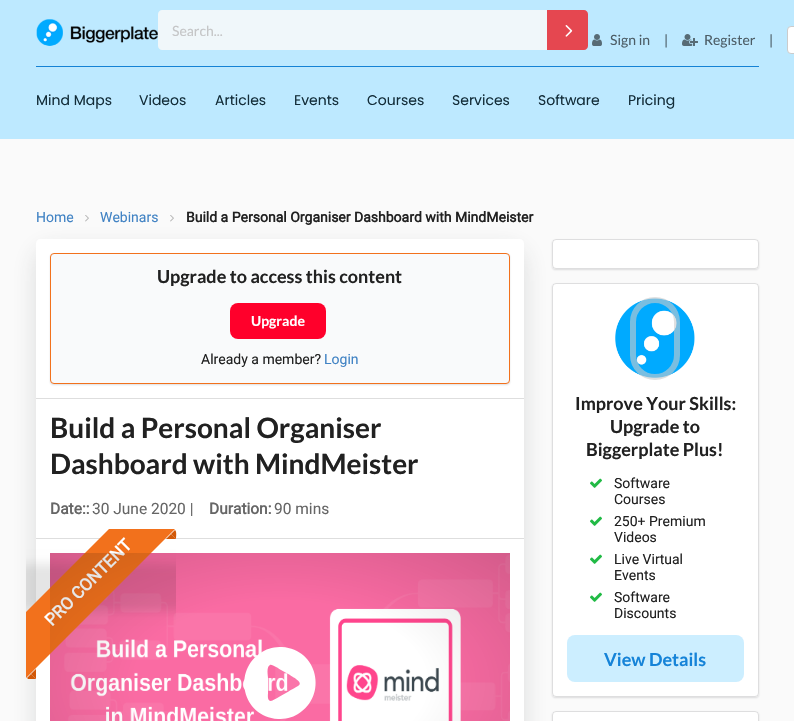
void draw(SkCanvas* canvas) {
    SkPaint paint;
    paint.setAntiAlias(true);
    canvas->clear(0xFFFAFAFA);
    paint.setColor(0xFFBDE9FF);
    canvas->drawRect(SkRect::MakeXYWH(0, 0, 794, 139), paint);
    canvas->drawImageRect(SkImages::DeferredFromEncodedData(SkData::MakeFromFileName("img1.png")), SkRect::MakeXYWH(36, 19, 122, 27), SkSamplingOptions());
    paint.setColor(0xFFF0F7FA);
    canvas->drawPath(SkPathBuilder().moveTo(162, 10).lineTo(547, 10).lineTo(547, 50).lineTo(162, 50).cubicTo(160, 50, 158, 48, 158, 46).lineTo(158, 14).cubicTo(158, 12, 160, 10, 162, 10).close().detach(), paint);
    SkFont font1(fontMgr->matchFamilyStyle("Lato", SkFontStyle::Normal()), 14);
    font1.setSubpixel(true);
    paint.setColor(0xFFC5C6C7);
    canvas->drawString("Search...", 172, 36, font1, paint);
    paint.setColor(0xFFE54750);
    canvas->drawPath(SkPathBuilder().moveTo(547, 10).lineTo(584, 10).cubicTo(586, 10, 588, 12, 588, 14).lineTo(588, 46).cubicTo(588, 48, 586, 50, 584, 50).lineTo(547, 50).close().detach(), paint);
    canvas->drawImageRect(SkImages::DeferredFromEncodedData(SkData::MakeFromFileName("img2.png")), SkRect::MakeXYWH(565, 25, 8, 12), SkSamplingOptions());
    canvas->drawImageRect(SkImages::DeferredFromEncodedData(SkData::MakeFromFileName("img3.png")), SkRect::MakeXYWH(592, 34, 10, 12), SkSamplingOptions());
    paint.setColor(0xFF4C5D66);
    canvas->drawString("Sign in", 610, 45, font1, paint);
    canvas->drawString("|", 664, 45, font1, paint);
    canvas->drawImageRect(SkImages::DeferredFromEncodedData(SkData::MakeFromFileName("img4.png")), SkRect::MakeXYWH(682, 34, 16, 12), SkSamplingOptions());
    canvas->drawString("Register", 704, 45, font1, paint);
    canvas->drawString("|", 769, 45, font1, paint);
    paint.setColor(0xFFFFFFFF);
    canvas->drawRoundRect(SkRect::MakeXYWH(787.5f, 26.5f, 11, 27), 3.5f, 3.5f, paint);
    paint.setStyle(SkPaint::kStroke_Style);
    paint.setStrokeWidth(1);
    paint.setColor(0xFFCCCCCC);
    canvas->drawRoundRect(SkRect::MakeXYWH(787.5f, 26.5f, 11, 27), 3.5f, 3.5f, paint);
    paint.setStyle(SkPaint::kFill_Style);
    paint.setColor(0xFF1582D5);
    canvas->drawRect(SkRect::MakeXYWH(36, 66, 723, 1), paint);
    SkFont font2(fontMgr->matchFamilyStyle("Poppins", SkFontStyle::Normal()), 14);
    font2.setSubpixel(true);
    paint.setColor(0xFF132D39);
    canvas->drawString("Mind Maps", 36, 105, font2, paint);
    canvas->drawString("Videos", 139, 105, font2, paint);
    canvas->drawString("Articles", 215, 105, font2, paint);
    canvas->drawString("Events", 294, 105, font2, paint);
    canvas->drawString("Courses", 367, 105, font2, paint);
    canvas->drawString("Services", 452, 105, font2, paint);
    canvas->drawString("Software", 538, 105, font2, paint);
    canvas->drawString("Pricing", 628, 105, font2, paint);
    SkFont font3(fontMgr->matchFamilyStyle("Roboto", SkFontStyle::Normal()), 14);
    font3.setSubpixel(true);
    paint.setColor(0xFF4183C4);
    canvas->drawString("Home", 36, 222, font3, paint);
    canvas->drawImageRect(SkImages::DeferredFromEncodedData(SkData::MakeFromFileName("img5.png")), SkRect::MakeXYWH(85, 215, 4, 7), SkSamplingOptions());
    canvas->drawString("Webinars", 100, 222, font3, paint);
    canvas->drawImageRect(SkImages::DeferredFromEncodedData(SkData::MakeFromFileName("img5.png")), SkRect::MakeXYWH(170, 215, 4, 7), SkSamplingOptions());
    SkFont font4(fontMgr->matchFamilyStyle("Roboto", SkFontStyle::Bold()), 14);
    font4.setSubpixel(true);
    paint.setColor(0xFF212121);
    canvas->drawString("Build a Personal Organiser Dashboard with MindMeister", 186, 222, font4, paint);
    paint.setColor(0x262E3333);
    paint.setMaskFilter(SkMaskFilter::MakeBlur(kNormal_SkBlurStyle, 12));
    canvas->drawRoundRect(SkRect::MakeXYWH(36, 249, 488, 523), 15, 15, paint);
    paint.setMaskFilter(nullptr);
    paint.setColor(0xFFFFFFFF);
    canvas->drawPath(SkPathBuilder().moveTo(40, 239).lineTo(520, 239).cubicTo(522, 239, 524, 241, 524, 243).lineTo(524, 398).lineTo(36, 398).lineTo(36, 243).cubicTo(36, 241, 38, 239, 40, 239).close().detach(), paint);
    paint.setColor(0x26222426);
    paint.setMaskFilter(SkMaskFilter::MakeBlur(kNormal_SkBlurStyle, 1));
    canvas->drawRoundRect(SkRect::MakeXYWH(50, 254, 460, 131), 4, 4, paint);
    paint.setMaskFilter(nullptr);
    paint.setColor(0xFFF9FAFB);
    canvas->drawRoundRect(SkRect::MakeXYWH(50.5f, 253.5f, 459, 130), 3.5f, 3.5f, paint);
    paint.setStyle(SkPaint::kStroke_Style);
    paint.setColor(0xFFF2711C);
    canvas->drawRoundRect(SkRect::MakeXYWH(50.5f, 253.5f, 459, 130), 3.5f, 3.5f, paint);
    SkFont font5(fontMgr->matchFamilyStyle("Lato", SkFontStyle::Bold()), 18);
    font5.setSubpixel(true);
    paint.setStyle(SkPaint::kFill_Style);
    paint.setColor(0xFF212121);
    canvas->drawString("Upgrade to access this content", 157, 283, font5, paint);
    paint.setColor(0xFFFF002B);
    canvas->drawRoundRect(SkRect::MakeXYWH(230, 303, 96, 36), 8, 8, paint);
    SkFont font6(fontMgr->matchFamilyStyle("Lato", SkFontStyle::Bold()), 14);
    font6.setSubpixel(true);
    paint.setColor(0xFFFFFFFF);
    canvas->drawString("Upgrade", 251, 326, font6, paint);
    paint.setColor(0xFF212121);
    canvas->drawString("Already a member?", 201, 364, font3, paint);
    paint.setColor(0xFF4183C4);
    canvas->drawString("Login", 324, 364, font3, paint);
    paint.setColor(0xFFFFFFFF);
    canvas->drawRect(SkRect::MakeXYWH(36, 399, 488, 139), paint);
    paint.setColor(0xFFDEDEDE);
    canvas->drawRect(SkRect::MakeXYWH(36, 398, 488, 1), paint);
    SkFont font7(fontMgr->matchFamilyStyle("Lato", SkFontStyle::Bold()), 28);
    font7.setSubpixel(true);
    paint.setColor(0xFF212121);
    canvas->drawString("Build a Personal Organiser", 50, 438, font7, paint);
    canvas->drawString("Dashboard with MindMeister", 50, 474, font7, paint);
    SkFont font8(fontMgr->matchFamilyStyle("Roboto", SkFontStyle::Bold()), 15.5f);
    font8.setSubpixel(true);
    paint.setColor(0xFF666666);
    canvas->drawString("Date::", 50, 514, font8, paint);
    SkFont font9(fontMgr->matchFamilyStyle("Roboto", SkFontStyle::Normal()), 15.5f);
    font9.setSubpixel(true);
    canvas->drawString("30 June 2020 |", 92, 514, font9, paint);
    canvas->drawString("Duration:", 209, 514, font8, paint);
    canvas->drawString("90 mins", 274, 514, font9, paint);
    paint.setColor(0xFFFFFFFF);
    canvas->drawRect(SkRect::MakeXYWH(36, 539, 488, 182), paint);
    paint.setColor(0xFFDEDEDE);
    canvas->drawRect(SkRect::MakeXYWH(36, 538, 488, 1), paint);
    paint.setColor(0xFFD25807);
    canvas->drawPath(SkPathBuilder().moveTo(176, 539).cubicTo(176, 537, 177, 531.5f, 175, 530).lineTo(171, 534).close().detach(), paint);
    canvas->drawPath(SkPathBuilder().moveTo(176, 539).lineTo(166, 539).lineTo(171, 534).close().detach(), paint);
    canvas->drawImageRect(SkImages::DeferredFromEncodedData(SkData::MakeFromFileName("img6.png")), SkRect::MakeXYWH(50, 553, 460, 168), SkSamplingOptions());
    canvas->save();
    canvas->clipPath(SkPathBuilder().moveTo(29, 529).lineTo(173, 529).cubicTo(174.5f, 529, 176, 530.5f, 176, 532).lineTo(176, 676).cubicTo(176, 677.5f, 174.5f, 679, 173, 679).lineTo(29, 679).cubicTo(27.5f, 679, 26, 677.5f, 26, 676).lineTo(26, 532).cubicTo(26, 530.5f, 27.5f, 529, 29, 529).close().detach(), true);
    paint.setColor(0x1A000000);
    paint.setMaskFilter(SkMaskFilter::MakeBlur(kNormal_SkBlurStyle, 5));
    canvas->drawRect(SkRect::MakeXYWH(-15, 564, 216, 47), paint);
    paint.setMaskFilter(nullptr);
    canvas->restore();
    paint.setColor(0xFFD25807);
    canvas->drawPath(SkPathBuilder().moveTo(36, 669).lineTo(36, 679).lineTo(31, 674).close().detach(), paint);
    canvas->drawPath(SkPathBuilder().moveTo(36, 679).lineTo(31, 674).lineTo(27, 678).cubicTo(27.5f, 678.5f, 28, 679, 29, 679).close().detach(), paint);
    paint.setColor(0xFFF2711C);
    canvas->drawPath(SkPathBuilder().moveTo(175, 529).lineTo(26, 678).lineTo(26, 676).lineTo(26, 612).lineTo(109, 529).lineTo(173, 529).close().detach(), paint);
    SkFont font10(fontMgr->matchFamilyStyle("Roboto", SkFontStyle::Bold()), 17);
    font10.setSubpixel(true);
    paint.setColor(0xFFFFFFFF);
    canvas->save();
    canvas->rotate(-45, 52, 627);
    canvas->drawString("PRO CONTENT", 52, 627, font10, paint);
    canvas->restore();
    {
        const SkColor colors[] = {0x00000000, 0x26000000};
        const float stops[] = {0.45f, 1};
        SkMatrix m = SkMatrix::Translate(280, 683).preScale(325, 183);
        paint.setShader(SkGradientShader::MakeRadial({0, 0}, 1, colors, stops, 2, SkTileMode::kClamp, 0, &m));
        paint.setAlpha(255);
    }
    canvas->drawRect(SkRect::MakeXYWH(50, 553, 460, 168), paint);
    paint.setShader(nullptr);
    paint.setColor(0xFFFFFFFF);
    canvas->drawPath(SkPathBuilder().moveTo(262, 652).cubicTo(268, 648, 275, 647, 282, 647).cubicTo(318, 649, 328, 696, 298, 714).cubicTo(292, 718, 285, 719, 278, 719).cubicTo(242, 717, 232, 670, 262, 652).close().moveTo(298, 686).cubicTo(305, 682, 290, 676, 290, 675).lineTo(281, 670).cubicTo(279, 669, 272, 664, 270, 665).cubicTo(266, 667, 268, 676, 268, 678).lineTo(268, 693).cubicTo(268, 695, 267, 701, 271, 701).cubicTo(273, 701, 294, 688, 298, 686).close().detach(), paint);
    paint.setColor(0x26222426);
    paint.setMaskFilter(SkMaskFilter::MakeBlur(kNormal_SkBlurStyle, 1));
    canvas->drawRoundRect(SkRect::MakeXYWH(552, 240, 207, 30), 4, 4, paint);
    paint.setMaskFilter(nullptr);
    paint.setColor(0xFFFFFFFF);
    canvas->drawRoundRect(SkRect::MakeXYWH(552, 239, 207, 30), 4, 4, paint);
    paint.setStyle(SkPaint::kStroke_Style);
    paint.setColor(0x26222426);
    canvas->drawRoundRect(SkRect::MakeXYWH(552.5f, 239.5f, 206, 29), 3.5f, 3.5f, paint);
    paint.setStyle(SkPaint::kFill_Style);
    paint.setMaskFilter(SkMaskFilter::MakeBlur(kNormal_SkBlurStyle, 1));
    canvas->drawRoundRect(SkRect::MakeXYWH(552, 284, 207, 414), 4, 4, paint);
    paint.setMaskFilter(nullptr);
    paint.setColor(0xFFFFFFFF);
    canvas->drawRoundRect(SkRect::MakeXYWH(552, 283, 207, 414), 4, 4, paint);
    paint.setStyle(SkPaint::kStroke_Style);
    paint.setColor(0x26222426);
    canvas->drawRoundRect(SkRect::MakeXYWH(552.5f, 283.5f, 206, 413), 3.5f, 3.5f, paint);
    canvas->drawImageRect(SkImages::DeferredFromEncodedData(SkData::MakeFromFileName("img7.png")), SkRect::MakeXYWH(615, 298, 80, 80), SkSamplingOptions());
    paint.setStrokeWidth(6);
    paint.setColor(0x99CCCCCC);
    canvas->drawRoundRect(SkRect::MakeXYWH(633, 300, 44, 77), 22, 22, paint);
    paint.setStyle(SkPaint::kFill_Style);
    paint.setColor(0xFF212121);
    canvas->drawString("Improve Your Skills:", 575, 410, font5, paint);
    canvas->drawString("Upgrade to", 610, 433, font5, paint);
    canvas->drawString("Biggerplate Plus!", 586, 456, font5, paint);
    canvas->drawImageRect(SkImages::DeferredFromEncodedData(SkData::MakeFromFileName("img8.png")), SkRect::MakeXYWH(590, 478, 12, 10), SkSamplingOptions());
    canvas->drawString("Software", 614, 488, font3, paint);
    canvas->drawString("Courses", 614, 504, font3, paint);
    canvas->drawImageRect(SkImages::DeferredFromEncodedData(SkData::MakeFromFileName("img8.png")), SkRect::MakeXYWH(590, 516, 12, 10), SkSamplingOptions());
    canvas->drawString("250+ Premium", 614, 526, font3, paint);
    canvas->drawString("Videos", 614, 542, font3, paint);
    canvas->drawImageRect(SkImages::DeferredFromEncodedData(SkData::MakeFromFileName("img8.png")), SkRect::MakeXYWH(590, 554, 12, 10), SkSamplingOptions());
    canvas->drawString("Live Virtual", 614, 564, font3, paint);
    canvas->drawString("Events", 614, 580, font3, paint);
    canvas->drawImageRect(SkImages::DeferredFromEncodedData(SkData::MakeFromFileName("img8.png")), SkRect::MakeXYWH(590, 592, 12, 10), SkSamplingOptions());
    canvas->drawString("Software", 614, 602, font3, paint);
    canvas->drawString("Discounts", 614, 618, font3, paint);
    paint.setColor(0xFFCCEEFF);
    canvas->drawRoundRect(SkRect::MakeXYWH(567, 635, 177, 47), 8, 8, paint);
    paint.setColor(0xFF1583D8);
    canvas->drawString("View Details", 604, 666, font5, paint);
    paint.setColor(0x26222426);
    paint.setMaskFilter(SkMaskFilter::MakeBlur(kNormal_SkBlurStyle, 1));
    canvas->drawRoundRect(SkRect::MakeXYWH(552, 712, 207, 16), 4, 4, paint);
    paint.setMaskFilter(nullptr);
    paint.setColor(0xFFFFFFFF);
    canvas->drawRoundRect(SkRect::MakeXYWH(552, 711, 207, 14), 4, 4, paint);
    paint.setStyle(SkPaint::kStroke_Style);
    paint.setStrokeWidth(1);
    paint.setColor(0x26222426);
    canvas->drawRoundRect(SkRect::MakeXYWH(552.5f, 711.5f, 206, 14), 3.5f, 3.5f, paint);
}
